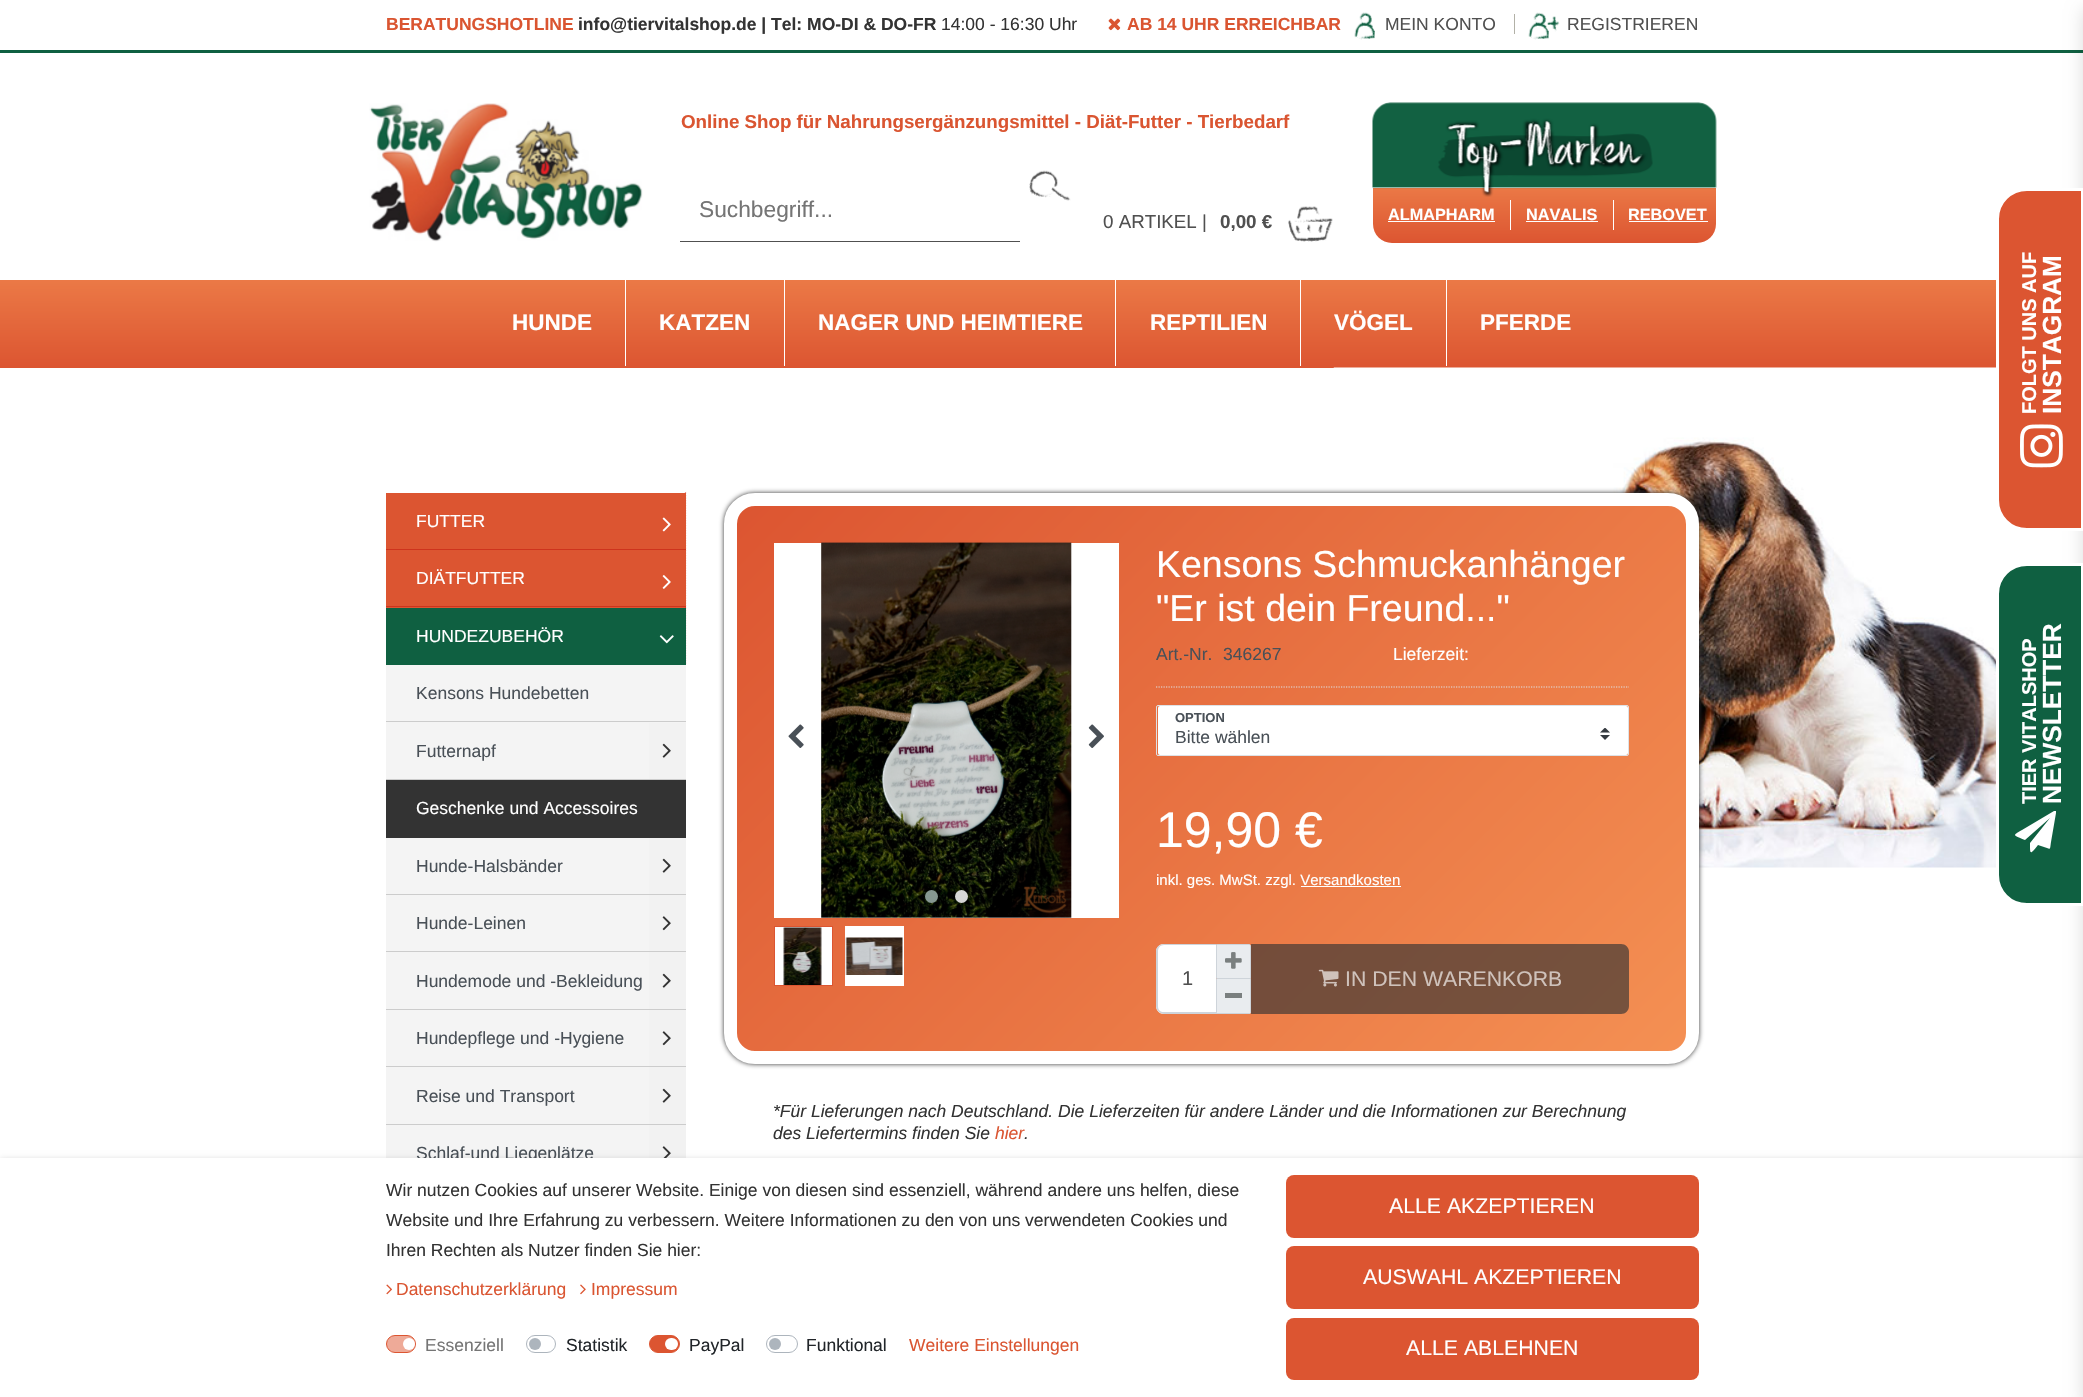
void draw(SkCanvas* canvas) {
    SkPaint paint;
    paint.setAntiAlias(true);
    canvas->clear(0xFFFFFFFF);
    paint.setColor(0xFF0F6041);
    canvas->drawRect(SkRect::MakeXYWH(0, 50, 2083, 3), paint);
    SkFont font1(fontMgr->matchFamilyStyle("Liberation Sans", SkFontStyle::Bold()), 17.5f);
    font1.setSubpixel(true);
    paint.setColor(0xFFDA5531);
    canvas->drawString("BERATUNGSHOTLINE", 386, 30, font1, paint);
    paint.setColor(0xFF333333);
    canvas->drawString("info@tiervitalshop.de | Tel: MO-DI & DO-FR", 578, 30, font1, paint);
    SkFont font2(fontMgr->matchFamilyStyle("Liberation Sans", SkFontStyle::Normal()), 17.5f);
    font2.setSubpixel(true);
    canvas->drawString("14:00 - 16:30 Uhr", 941, 30, font2, paint);
    canvas->drawImageRect(SkImages::DeferredFromEncodedData(SkData::MakeFromFileName("img1.png")), SkRect::MakeXYWH(1108, 18, 13, 13), SkSamplingOptions());
    paint.setColor(0xFFDA5531);
    canvas->drawString("AB 14 UHR ERREICHBAR", 1127, 30, font1, paint);
    canvas->drawImageRect(SkImages::DeferredFromEncodedData(SkData::MakeFromFileName("img2.png")), SkRect::MakeXYWH(1354, 12, 21, 28), SkSamplingOptions());
    paint.setColor(0xFF505050);
    canvas->drawString("MEIN KONTO", 1385, 30, font2, paint);
    paint.setColor(0xFFB2B1A7);
    canvas->drawRect(SkRect::MakeXYWH(1514, 14, 1, 20), paint);
    canvas->drawImageRect(SkImages::DeferredFromEncodedData(SkData::MakeFromFileName("img3.png")), SkRect::MakeXYWH(1528, 12, 32, 28), SkSamplingOptions());
    paint.setColor(0xFF505050);
    canvas->drawString("REGISTRIEREN", 1567, 30, font2, paint);
    canvas->drawImageRect(SkImages::DeferredFromEncodedData(SkData::MakeFromFileName("img4.png")), SkRect::MakeXYWH(369, 103, 274, 139), SkSamplingOptions());
    SkFont font3(fontMgr->matchFamilyStyle("Liberation Sans", SkFontStyle::Bold()), 18.75f);
    font3.setSubpixel(true);
    paint.setColor(0xFFDA5531);
    canvas->drawString("Online Shop für Nahrungsergänzungsmittel - Diät-Futter - Tierbedarf", 681, 128, font3, paint);
    canvas->drawImageRect(SkImages::DeferredFromEncodedData(SkData::MakeFromFileName("img5.png")), SkRect::MakeXYWH(1029, 170, 42, 31), SkSamplingOptions());
    paint.setColor(0xFF505050);
    canvas->drawRect(SkRect::MakeXYWH(680, 241, 340, 1), paint);
    SkFont font4(fontMgr->matchFamilyStyle("Liberation Sans", SkFontStyle::Normal()), 22.75f);
    font4.setSubpixel(true);
    paint.setColor(0xFF757575);
    canvas->drawString("Suchbegriff...", 699, 217, font4, paint);
    SkFont font5(fontMgr->matchFamilyStyle("Liberation Sans", SkFontStyle::Normal()), 18.75f);
    font5.setSubpixel(true);
    paint.setColor(0xFF505050);
    canvas->drawString("0 ARTIKEL |", 1103, 228, font5, paint);
    canvas->drawString("0,00 €", 1220, 228, font3, paint);
    canvas->drawImageRect(SkImages::DeferredFromEncodedData(SkData::MakeFromFileName("img6.png")), SkRect::MakeXYWH(1288, 206, 45, 36), SkSamplingOptions());
    {
        const SkColor colors[] = {0xFFEB7946, 0xFFDC5531};
        const float stops[] = {0, 1};
        const SkPoint ends[] = {{1544, 187}, {1544, 243}};
        paint.setShader(SkGradientShader::MakeLinear(ends, colors, stops, 2, SkTileMode::kClamp));
        paint.setAlpha(255);
    }
    canvas->drawPath(SkPathBuilder().moveTo(1373, 188).lineTo(1716, 188).lineTo(1716, 224).cubicTo(1716, 234.5f, 1707.5f, 243, 1697, 243).lineTo(1392, 243).cubicTo(1381.5f, 243, 1373, 234.5f, 1373, 224).close().detach(), paint);
    canvas->drawImageRect(SkImages::DeferredFromEncodedData(SkData::MakeFromFileName("img7.png")), SkRect::MakeXYWH(1372, 102, 345, 95), SkSamplingOptions());
    paint.setShader(nullptr);
    paint.setColor(0xFFFFFFFF);
    canvas->drawRect(SkRect::MakeXYWH(1510, 200, 1, 30), paint);
    SkFont font6(fontMgr->matchFamilyStyle("Liberation Sans", SkFontStyle::Bold()), 16.25f);
    font6.setSubpixel(true);
    canvas->drawString("ALMAPHARM", 1388, 220, font6, paint);
    canvas->drawRect(SkRect::MakeXYWH(1388, 221, 107, 1), paint);
    canvas->drawRect(SkRect::MakeXYWH(1613, 200, 1, 30), paint);
    canvas->drawString("NAVALIS", 1526, 220, font6, paint);
    canvas->drawRect(SkRect::MakeXYWH(1526, 221, 72, 1), paint);
    canvas->drawString("REBOVET", 1628, 220, font6, paint);
    canvas->drawRect(SkRect::MakeXYWH(1629, 221, 79, 1), paint);
    {
        const SkColor colors[] = {0xFFEB7946, 0xFFDC5531};
        const float stops[] = {0, 1};
        const SkPoint ends[] = {{1042, 280}, {1042, 368}};
        paint.setShader(SkGradientShader::MakeLinear(ends, colors, stops, 2, SkTileMode::kClamp));
        paint.setAlpha(255);
    }
    canvas->drawRect(SkRect::MakeXYWH(0, 280, 1996, 88), paint);
    paint.setShader(nullptr);
    paint.setColor(0xFFFFFFFF);
    canvas->drawRect(SkRect::MakeXYWH(625, 280, 1, 86), paint);
    SkFont font7(fontMgr->matchFamilyStyle("Liberation Sans", SkFontStyle::Bold()), 22.5f);
    font7.setSubpixel(true);
    canvas->drawString("HUNDE", 512, 330, font7, paint);
    canvas->drawRect(SkRect::MakeXYWH(784, 280, 1, 86), paint);
    canvas->drawString("KATZEN", 659, 330, font7, paint);
    canvas->drawRect(SkRect::MakeXYWH(1115, 280, 1, 86), paint);
    canvas->drawString("NAGER UND HEIMTIERE", 818, 330, font7, paint);
    canvas->drawRect(SkRect::MakeXYWH(1300, 280, 1, 86), paint);
    canvas->drawString("REPTILIEN", 1150, 330, font7, paint);
    canvas->drawRect(SkRect::MakeXYWH(1446, 280, 1, 86), paint);
    canvas->drawString("VÖGEL", 1334, 330, font7, paint);
    canvas->drawString("PFERDE", 1480, 330, font7, paint);
    canvas->drawImageRect(SkImages::DeferredFromEncodedData(SkData::MakeFromFileName("img22.png")), SkRect::MakeXYWH(1333, 367, 750, 501), SkSamplingOptions());
    paint.setColor(0xFFF4F4F4);
    canvas->drawRect(SkRect::MakeXYWH(386, 1125, 263, 33), paint);
    paint.setColor(0xFF495057);
    canvas->drawString("Schlaf-und Liegeplätze", 416, 1159, font2, paint);
    paint.setColor(0xFFF2F2F2);
    canvas->drawRect(SkRect::MakeXYWH(649, 1125, 37, 33), paint);
    canvas->drawImageRect(SkImages::DeferredFromEncodedData(SkData::MakeFromFileName("img13.png")), SkRect::MakeXYWH(662, 1146, 9, 12), SkSamplingOptions());
    paint.setColor(0x26000000);
    paint.setMaskFilter(SkMaskFilter::MakeBlur(kNormal_SkBlurStyle, 3));
    canvas->drawRect(SkRect::MakeXYWH(0, 1159, 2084, 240), paint);
    paint.setMaskFilter(nullptr);
    paint.setColor(0xFFFFFFFF);
    canvas->drawRect(SkRect::MakeXYWH(0, 1158, 2083, 239), paint);
    paint.setColor(0x26000000);
    paint.setMaskFilter(SkMaskFilter::MakeBlur(kNormal_SkBlurStyle, 9));
    canvas->drawRect(SkRect::MakeXYWH(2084, 9, 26, 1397), paint);
    paint.setMaskFilter(nullptr);
    paint.setColor(0xFFDC5531);
    canvas->drawRect(SkRect::MakeXYWH(386, 493, 263, 56), paint);
    paint.setStyle(SkPaint::kStroke_Style);
    paint.setStrokeWidth(1.2f);
    paint.setColor(0xFFCE331D);
    paint.setPathEffect(SkDashPathEffect::Make({{1.25f, 1.25f}}, 0));
    canvas->drawPath(SkPathBuilder().moveTo(685.5f, 492.5f).lineTo(685.5f, 550).detach(), paint);
    paint.setPathEffect(nullptr);
    paint.setStyle(SkPaint::kFill_Style);
    canvas->drawRect(SkRect::MakeXYWH(386, 549, 300, 1), paint);
    paint.setColor(0xFFFFFFFF);
    canvas->drawString("FUTTER", 416, 527, font2, paint);
    paint.setColor(0xFFDC5531);
    canvas->drawRect(SkRect::MakeXYWH(649, 493, 37, 56), paint);
    canvas->drawImageRect(SkImages::DeferredFromEncodedData(SkData::MakeFromFileName("img8.png")), SkRect::MakeXYWH(662, 517, 9, 15), SkSamplingOptions());
    canvas->drawRect(SkRect::MakeXYWH(386, 550, 263, 58), paint);
    paint.setStyle(SkPaint::kStroke_Style);
    paint.setColor(0xFFCE331D);
    paint.setPathEffect(SkDashPathEffect::Make({{1.25f, 1.25f}}, 0));
    canvas->drawPath(SkPathBuilder().moveTo(685.5f, 550).lineTo(685.5f, 607.5f).detach(), paint);
    paint.setPathEffect(nullptr);
    paint.setStyle(SkPaint::kFill_Style);
    canvas->drawRect(SkRect::MakeXYWH(386, 606, 263, 1), paint);
    paint.setColor(0xFFFFFFFF);
    canvas->drawString("DIÄTFUTTER", 416, 584, font2, paint);
    paint.setColor(0xFFDC5531);
    canvas->drawRect(SkRect::MakeXYWH(649, 550, 37, 58), paint);
    paint.setColor(0xFFCE331D);
    canvas->drawRect(SkRect::MakeXYWH(649, 606, 37, 1), paint);
    canvas->drawImageRect(SkImages::DeferredFromEncodedData(SkData::MakeFromFileName("img9.png")), SkRect::MakeXYWH(662, 575, 9, 14), SkSamplingOptions());
    paint.setColor(0xFF0F6041);
    canvas->drawRect(SkRect::MakeXYWH(386, 608, 263, 57), paint);
    paint.setStyle(SkPaint::kStroke_Style);
    paint.setColor(0xFFCE331D);
    paint.setPathEffect(SkDashPathEffect::Make({{1.25f, 1.25f}}, 0));
    canvas->drawPath(SkPathBuilder().moveTo(685.5f, 607.5f).lineTo(685.5f, 665).detach(), paint);
    paint.setPathEffect(nullptr);
    paint.setStyle(SkPaint::kFill_Style);
    paint.setColor(0xFFFFFFFF);
    canvas->drawString("HUNDEZUBEHÖR", 416, 642, font2, paint);
    paint.setColor(0xFF0F6041);
    canvas->drawRect(SkRect::MakeXYWH(649, 608, 37, 57), paint);
    canvas->drawImageRect(SkImages::DeferredFromEncodedData(SkData::MakeFromFileName("img10.png")), SkRect::MakeXYWH(659, 635, 15, 9), SkSamplingOptions());
    paint.setColor(0xFFF4F4F4);
    canvas->drawRect(SkRect::MakeXYWH(386, 665, 300, 58), paint);
    paint.setColor(0xFFCCCCCC);
    canvas->drawRect(SkRect::MakeXYWH(386, 721, 300, 1), paint);
    paint.setColor(0xFF495057);
    canvas->drawString("Kensons Hundebetten", 416, 699, font2, paint);
    paint.setColor(0xFFF4F4F4);
    canvas->drawRect(SkRect::MakeXYWH(386, 723, 263, 56), paint);
    paint.setColor(0xFFCCCCCC);
    canvas->drawRect(SkRect::MakeXYWH(386, 779, 300, 1), paint);
    paint.setColor(0xFF495057);
    canvas->drawString("Futternapf", 416, 757, font2, paint);
    paint.setColor(0xFFF2F2F2);
    canvas->drawRect(SkRect::MakeXYWH(649, 723, 37, 56), paint);
    canvas->drawImageRect(SkImages::DeferredFromEncodedData(SkData::MakeFromFileName("img11.png")), SkRect::MakeXYWH(662, 743, 9, 15), SkSamplingOptions());
    paint.setColor(0xFF333333);
    canvas->drawRect(SkRect::MakeXYWH(386, 780, 300, 58), paint);
    paint.setColor(0xFFFFFFFF);
    canvas->drawString("Geschenke und Accessoires", 416, 814, font2, paint);
    paint.setColor(0xFFF4F4F4);
    canvas->drawRect(SkRect::MakeXYWH(386, 838, 263, 56), paint);
    paint.setColor(0xFFCCCCCC);
    canvas->drawRect(SkRect::MakeXYWH(386, 894, 300, 1), paint);
    paint.setColor(0xFF495057);
    canvas->drawString("Hunde-Halsbänder", 416, 872, font2, paint);
    paint.setColor(0xFFF2F2F2);
    canvas->drawRect(SkRect::MakeXYWH(649, 838, 37, 56), paint);
    canvas->drawImageRect(SkImages::DeferredFromEncodedData(SkData::MakeFromFileName("img11.png")), SkRect::MakeXYWH(662, 858, 9, 15), SkSamplingOptions());
    paint.setColor(0xFFF4F4F4);
    canvas->drawRect(SkRect::MakeXYWH(386, 895, 263, 114), paint);
    paint.setColor(0xFFCCCCCC);
    canvas->drawRect(SkRect::MakeXYWH(386, 951, 263, 1), paint);
    paint.setColor(0xFF495057);
    canvas->drawString("Hunde-Leinen", 416, 929, font2, paint);
    paint.setColor(0xFFF2F2F2);
    canvas->drawRect(SkRect::MakeXYWH(649, 895, 37, 114), paint);
    paint.setColor(0xFFCCCCCC);
    canvas->drawRect(SkRect::MakeXYWH(649, 951, 37, 1), paint);
    canvas->drawImageRect(SkImages::DeferredFromEncodedData(SkData::MakeFromFileName("img12.png")), SkRect::MakeXYWH(662, 916, 9, 15), SkSamplingOptions());
    canvas->drawRect(SkRect::MakeXYWH(386, 1009, 300, 1), paint);
    paint.setColor(0xFF495057);
    canvas->drawString("Hundemode und -Bekleidung", 416, 987, font2, paint);
    canvas->drawImageRect(SkImages::DeferredFromEncodedData(SkData::MakeFromFileName("img11.png")), SkRect::MakeXYWH(662, 973, 9, 15), SkSamplingOptions());
    paint.setColor(0xFFF4F4F4);
    canvas->drawRect(SkRect::MakeXYWH(386, 1010, 263, 114), paint);
    paint.setColor(0xFFCCCCCC);
    canvas->drawRect(SkRect::MakeXYWH(386, 1066, 263, 1), paint);
    paint.setColor(0xFF495057);
    canvas->drawString("Hundepflege und -Hygiene", 416, 1044, font2, paint);
    paint.setColor(0xFFF2F2F2);
    canvas->drawRect(SkRect::MakeXYWH(649, 1010, 37, 114), paint);
    paint.setColor(0xFFCCCCCC);
    canvas->drawRect(SkRect::MakeXYWH(649, 1066, 37, 1), paint);
    canvas->drawImageRect(SkImages::DeferredFromEncodedData(SkData::MakeFromFileName("img12.png")), SkRect::MakeXYWH(662, 1031, 9, 15), SkSamplingOptions());
    canvas->drawRect(SkRect::MakeXYWH(386, 1124, 300, 1), paint);
    paint.setColor(0xFF495057);
    canvas->drawString("Reise und Transport", 416, 1102, font2, paint);
    canvas->drawImageRect(SkImages::DeferredFromEncodedData(SkData::MakeFromFileName("img11.png")), SkRect::MakeXYWH(662, 1088, 9, 15), SkSamplingOptions());
    paint.setColor(0xFF333333);
    paint.setMaskFilter(SkMaskFilter::MakeBlur(kNormal_SkBlurStyle, 2.5f));
    canvas->drawRoundRect(SkRect::MakeXYWH(724, 493, 975, 571), 31, 31, paint);
    paint.setMaskFilter(nullptr);
    {
        const SkColor colors[] = {0xFFDC5531, 0xFFF49053};
        const float stops[] = {0, 1};
        const SkPoint ends[] = {{837, 404}, {1585, 1152}};
        paint.setShader(SkGradientShader::MakeLinear(ends, colors, stops, 2, SkTileMode::kClamp));
        paint.setAlpha(255);
    }
    canvas->drawRect(SkRect::MakeXYWH(737, 506, 949, 545), paint);
    paint.setStyle(SkPaint::kStroke_Style);
    paint.setStrokeWidth(13);
    paint.setShader(nullptr);
    paint.setColor(0xFFFFFFFF);
    canvas->drawRoundRect(SkRect::MakeXYWH(730.5f, 499.5f, 962, 558), 24.5f, 24.5f, paint);
    paint.setStyle(SkPaint::kFill_Style);
    canvas->drawRect(SkRect::MakeXYWH(774, 543, 345, 375), paint);
    canvas->drawImageRect(SkImages::DeferredFromEncodedData(SkData::MakeFromFileName("img14.png")), SkRect::MakeXYWH(821, 542, 251, 376), SkSamplingOptions());
    canvas->drawImageRect(SkImages::DeferredFromEncodedData(SkData::MakeFromFileName("img15.png")), SkRect::MakeXYWH(788, 724, 16, 24), SkSamplingOptions());
    canvas->drawImageRect(SkImages::DeferredFromEncodedData(SkData::MakeFromFileName("img16.png")), SkRect::MakeXYWH(1088, 724, 16, 24), SkSamplingOptions());
    paint.setColor(0xFF869791);
    canvas->drawCircle(931.5f, 896.5f, 6.5f, paint);
    paint.setColor(0xFFD6D6D6);
    canvas->drawCircle(961.5f, 896.5f, 6.5f, paint);
    paint.setColor(0xFFFFFFFF);
    canvas->drawRect(SkRect::MakeXYWH(774.5f, 926.5f, 58, 59), paint);
    paint.setStyle(SkPaint::kStroke_Style);
    paint.setStrokeWidth(1);
    paint.setColor(0xFFDC5531);
    canvas->drawRect(SkRect::MakeXYWH(774.5f, 926.5f, 58, 59), paint);
    canvas->drawImageRect(SkImages::DeferredFromEncodedData(SkData::MakeFromFileName("img17.png")), SkRect::MakeXYWH(783, 927, 39, 58), SkSamplingOptions());
    paint.setStyle(SkPaint::kFill_Style);
    paint.setColor(0xFFFFFFFF);
    canvas->drawRect(SkRect::MakeXYWH(845, 926, 59, 60), paint);
    canvas->drawImageRect(SkImages::DeferredFromEncodedData(SkData::MakeFromFileName("img18.png")), SkRect::MakeXYWH(845, 937, 58, 38), SkSamplingOptions());
    SkFont font8(fontMgr->matchFamilyStyle("Liberation Sans", SkFontStyle::Normal()), 37.5f);
    font8.setSubpixel(true);
    canvas->drawString("Kensons Schmuckanhänger", 1156, 577, font8, paint);
    canvas->drawString("\"Er ist dein Freund...\"", 1156, 621, font8, paint);
    paint.setColor(0xFF495057);
    canvas->drawString("Art.-Nr.", 1156, 660, font2, paint);
    canvas->drawString("346267", 1223, 660, font2, paint);
    paint.setColor(0xFFFFFFFF);
    canvas->drawString("Lieferzeit:", 1393, 660, font2, paint);
    paint.setStyle(SkPaint::kStroke_Style);
    paint.setStrokeWidth(1.2f);
    paint.setColor(0xFFDEE2E6);
    paint.setPathEffect(SkDashPathEffect::Make({{1.25f, 1.25f}}, 0));
    canvas->drawPath(SkPathBuilder().moveTo(1156, 687).lineTo(1629, 687).detach(), paint);
    paint.setPathEffect(nullptr);
    paint.setStrokeWidth(1);
    canvas->drawRoundRect(SkRect::MakeXYWH(1156.5f, 705.5f, 472, 50), 1.5f, 1.5f, paint);
    paint.setStyle(SkPaint::kFill_Style);
    paint.setColor(0xFFFFFFFF);
    canvas->drawRoundRect(SkRect::MakeXYWH(1158, 706, 470, 49), 2, 2, paint);
    SkFont font9(fontMgr->matchFamilyStyle("Liberation Sans", SkFontStyle::Bold()), 13);
    font9.setSubpixel(true);
    paint.setColor(0xFF495057);
    canvas->drawString("OPTION", 1175, 722, font9, paint);
    canvas->drawImageRect(SkImages::DeferredFromEncodedData(SkData::MakeFromFileName("img19.png")), SkRect::MakeXYWH(1600, 728, 10, 12), SkSamplingOptions());
    canvas->drawString("Bitte wählen", 1175, 743, font2, paint);
    SkFont font10(fontMgr->matchFamilyStyle("Liberation Sans", SkFontStyle::Normal()), 50);
    font10.setSubpixel(true);
    paint.setColor(0xFFFFFFFF);
    canvas->drawString("19,90 €", 1156, 847, font10, paint);
    SkFont font11(fontMgr->matchFamilyStyle("Liberation Sans", SkFontStyle::Normal()), 15);
    font11.setSubpixel(true);
    canvas->drawString("inkl. ges. MwSt. zzgl. Versandkosten", 1156, 885, font11, paint);
    canvas->drawRect(SkRect::MakeXYWH(1301, 886, 100, 1), paint);
    canvas->drawPath(SkPathBuilder().moveTo(1164, 944).lineTo(1216, 944).lineTo(1216, 1014).lineTo(1164, 1014).cubicTo(1159.5f, 1014, 1156, 1010.5f, 1156, 1006).lineTo(1156, 952).cubicTo(1156, 947.5f, 1159.5f, 944, 1164, 944).close().detach(), paint);
    paint.setColor(0xFFCED4DA);
    canvas->drawPath(SkPathBuilder(SkPathFillType::kEvenOdd).moveTo(1164, 944).lineTo(1216, 944).lineTo(1216, 1014).lineTo(1164, 1014).cubicTo(1160, 1014, 1156, 1010, 1156, 1006).lineTo(1156, 951).cubicTo(1156, 947, 1160, 944, 1164, 944).close().moveTo(1164, 945).lineTo(1216, 945).lineTo(1216, 1012).lineTo(1164, 1012).cubicTo(1160, 1012, 1158, 1010, 1158, 1006).lineTo(1158, 951).cubicTo(1158, 948, 1160, 945, 1164, 945).close().detach(), paint);
    SkFont font12(fontMgr->matchFamilyStyle("Liberation Sans", SkFontStyle::Normal()), 20);
    font12.setSubpixel(true);
    paint.setColor(0xFF505050);
    canvas->drawString("1", 1182, 985, font12, paint);
    paint.setColor(0xFFE9ECEF);
    canvas->drawPath(SkPathBuilder().moveTo(1216.5f, 944.5f).lineTo(1249, 944.5f).cubicTo(1250, 944.5f, 1250.5f, 945, 1250.5f, 946).lineTo(1250.5f, 978.5f).lineTo(1216.5f, 978.5f).close().detach(), paint);
    paint.setStyle(SkPaint::kStroke_Style);
    paint.setColor(0xFFCED4DA);
    canvas->drawPath(SkPathBuilder().moveTo(1216.5f, 944.5f).lineTo(1249, 944.5f).cubicTo(1250, 944.5f, 1250.5f, 945, 1250.5f, 946).lineTo(1250.5f, 978.5f).lineTo(1216.5f, 978.5f).close().detach(), paint);
    canvas->drawImageRect(SkImages::DeferredFromEncodedData(SkData::MakeFromFileName("img20.png")), SkRect::MakeXYWH(1225, 952, 17, 17), SkSamplingOptions());
    paint.setStyle(SkPaint::kFill_Style);
    paint.setColor(0xFFE9ECEF);
    canvas->drawPath(SkPathBuilder().moveTo(1216, 979).lineTo(1251, 979).lineTo(1251, 1012).cubicTo(1251, 1013, 1250, 1014, 1249, 1014).lineTo(1216, 1014).close().detach(), paint);
    paint.setColor(0xFFCED4DA);
    canvas->drawRect(SkRect::MakeXYWH(1250, 979, 1, 34), paint);
    canvas->drawRect(SkRect::MakeXYWH(1216, 1013, 34, 1), paint);
    canvas->drawRect(SkRect::MakeXYWH(1216, 979, 1, 35), paint);
    paint.setColor(0xFF7A7F7F);
    canvas->drawRect(SkRect::MakeXYWH(1225, 993, 17, 5), paint);
    paint.setColor(0xA6333333);
    canvas->drawPath(SkPathBuilder().moveTo(1251, 944).lineTo(1621, 944).cubicTo(1625.5f, 944, 1629, 947.5f, 1629, 952).lineTo(1629, 1006).cubicTo(1629, 1010.5f, 1625.5f, 1014, 1621, 1014).lineTo(1251, 1014).close().detach(), paint);
    canvas->drawImageRect(SkImages::DeferredFromEncodedData(SkData::MakeFromFileName("img21.png")), SkRect::MakeXYWH(1318, 969, 21, 18), SkSamplingOptions());
    SkFont font13(fontMgr->matchFamilyStyle("Liberation Sans", SkFontStyle::Normal()), 21.25f);
    font13.setSubpixel(true);
    paint.setColor(0xFFCFC2BB);
    canvas->drawString("IN DEN WARENKORB", 1345, 986, font13, paint);
    SkFont font14(fontMgr->matchFamilyStyle("Liberation Sans", SkFontStyle::Italic()), 17.5f);
    font14.setSubpixel(true);
    paint.setColor(0xFF333333);
    canvas->drawString("*Für Lieferungen nach Deutschland. Die Lieferzeiten für andere Länder und die Informationen zur Berechnung", 773, 1117, font14, paint);
    canvas->drawString("des Liefertermins finden Sie", 773, 1139, font14, paint);
    paint.setColor(0xFFDA5531);
    canvas->drawString("hier", 995, 1139, font14, paint);
    paint.setColor(0xFF333333);
    canvas->drawString(".", 1024, 1139, font14, paint);
    paint.setColor(0xFFDC5531);
    canvas->drawPath(SkPathBuilder().moveTo(2027, 189.5f).lineTo(2082.5f, 189.5f).lineTo(2082.5f, 529.5f).lineTo(2027, 529.5f).cubicTo(2010.5f, 529.5f, 1997.5f, 516.5f, 1997.5f, 500).lineTo(1997.5f, 219).cubicTo(1997.5f, 202.5f, 2010.5f, 189.5f, 2027, 189.5f).close().detach(), paint);
    paint.setStyle(SkPaint::kStroke_Style);
    paint.setStrokeWidth(3);
    paint.setColor(0xFFFFFFFF);
    canvas->drawPath(SkPathBuilder().moveTo(2027, 189.5f).lineTo(2082.5f, 189.5f).lineTo(2082.5f, 529.5f).lineTo(2027, 529.5f).cubicTo(2010.5f, 529.5f, 1997.5f, 516.5f, 1997.5f, 500).lineTo(1997.5f, 219).cubicTo(1997.5f, 202.5f, 2010.5f, 189.5f, 2027, 189.5f).close().detach(), paint);
    SkFont font15(fontMgr->matchFamilyStyle("Liberation Sans", SkFontStyle::Bold()), 20);
    font15.setSubpixel(true);
    paint.setStyle(SkPaint::kFill_Style);
    canvas->save();
    canvas->rotate(-90, 2036, 414);
    canvas->drawString("FOLGT UNS AUF", 2036, 414, font15, paint);
    canvas->restore();
    SkFont font16(fontMgr->matchFamilyStyle("Liberation Sans", SkFontStyle::Bold()), 26.25f);
    font16.setSubpixel(true);
    canvas->save();
    canvas->rotate(-90, 2061, 414);
    canvas->drawString("INSTAGRAM", 2061, 414, font16, paint);
    canvas->restore();
    canvas->drawImageRect(SkImages::DeferredFromEncodedData(SkData::MakeFromFileName("img23.png")), SkRect::MakeXYWH(2020, 424, 43, 44), SkSamplingOptions());
    paint.setColor(0xFF0F6041);
    canvas->drawPath(SkPathBuilder().moveTo(2027, 564.5f).lineTo(2082.5f, 564.5f).lineTo(2082.5f, 904.5f).lineTo(2027, 904.5f).cubicTo(2010.5f, 904.5f, 1997.5f, 891.5f, 1997.5f, 875).lineTo(1997.5f, 594).cubicTo(1997.5f, 577.5f, 2010.5f, 564.5f, 2027, 564.5f).close().detach(), paint);
    paint.setStyle(SkPaint::kStroke_Style);
    paint.setColor(0xFFFFFFFF);
    canvas->drawPath(SkPathBuilder().moveTo(2027, 564.5f).lineTo(2082.5f, 564.5f).lineTo(2082.5f, 904.5f).lineTo(2027, 904.5f).cubicTo(2010.5f, 904.5f, 1997.5f, 891.5f, 1997.5f, 875).lineTo(1997.5f, 594).cubicTo(1997.5f, 577.5f, 2010.5f, 564.5f, 2027, 564.5f).close().detach(), paint);
    paint.setStyle(SkPaint::kFill_Style);
    canvas->save();
    canvas->rotate(-90, 2036, 804);
    canvas->drawString("TIER VITALSHOP", 2036, 804, font15, paint);
    canvas->restore();
    canvas->save();
    canvas->rotate(-90, 2061, 804);
    canvas->drawString("NEWSLETTER", 2061, 804, font16, paint);
    canvas->restore();
    canvas->drawPath(SkPathBuilder().moveTo(2056, 811).lineTo(2056, 813).lineTo(2051, 842).cubicTo(2050, 848, 2051, 850, 2047, 848).lineTo(2038, 845).cubicTo(2030, 855, 2030, 855, 2030, 843).lineTo(2050, 818).lineTo(2025, 840).cubicTo(2014, 835, 2011, 836, 2022, 830).lineTo(2054, 811).close().detach(), paint);
    paint.setColor(0xFF333333);
    canvas->drawString("Wir nutzen Cookies auf unserer Website. Einige von diesen sind essenziell, während andere uns helfen, diese", 386, 1196, font2, paint);
    canvas->drawString("Website und Ihre Erfahrung zu verbessern. Weitere Informationen zu den von uns verwendeten Cookies und", 386, 1226, font2, paint);
    canvas->drawString("Ihren Rechten als Nutzer finden Sie hier:", 386, 1256, font2, paint);
    canvas->drawImageRect(SkImages::DeferredFromEncodedData(SkData::MakeFromFileName("img24.png")), SkRect::MakeXYWH(386, 1284, 6, 11), SkSamplingOptions());
    paint.setColor(0xFFDA5531);
    canvas->drawString("Datenschutzerklärung", 396, 1295, font2, paint);
    canvas->drawImageRect(SkImages::DeferredFromEncodedData(SkData::MakeFromFileName("img25.png")), SkRect::MakeXYWH(580, 1284, 6, 11), SkSamplingOptions());
    canvas->drawString("Impressum", 591, 1295, font2, paint);
    paint.setColor(0xFFEEAA98);
    canvas->drawRoundRect(SkRect::MakeXYWH(386.5f, 1335.5f, 29, 17), 8.5f, 8.5f, paint);
    paint.setStyle(SkPaint::kStroke_Style);
    paint.setStrokeWidth(1);
    paint.setColor(0xFFDC5531);
    canvas->drawRoundRect(SkRect::MakeXYWH(386.5f, 1335.5f, 29, 17), 8.5f, 8.5f, paint);
    paint.setStyle(SkPaint::kFill_Style);
    paint.setColor(0xFFFFFFFF);
    canvas->drawCircle(409, 1344, 6, paint);
    paint.setColor(0xFF757575);
    canvas->drawString("Essenziell", 425, 1351, font2, paint);
    paint.setStyle(SkPaint::kStroke_Style);
    paint.setColor(0xFFADB5BD);
    canvas->drawRoundRect(SkRect::MakeXYWH(526.5f, 1335.5f, 29, 17), 8.5f, 8.5f, paint);
    paint.setStyle(SkPaint::kFill_Style);
    canvas->drawCircle(535, 1344, 6, paint);
    paint.setColor(0xFF212529);
    canvas->drawString("Statistik", 566, 1351, font2, paint);
    paint.setColor(0xFFDC5531);
    canvas->drawRoundRect(SkRect::MakeXYWH(649.5f, 1335.5f, 30, 17), 8.5f, 8.5f, paint);
    paint.setStyle(SkPaint::kStroke_Style);
    canvas->drawRoundRect(SkRect::MakeXYWH(649.5f, 1335.5f, 30, 17), 8.5f, 8.5f, paint);
    paint.setStyle(SkPaint::kFill_Style);
    paint.setColor(0xFFFFFFFF);
    canvas->drawRoundRect(SkRect::MakeXYWH(665, 1338, 13, 12), 6, 6, paint);
    paint.setColor(0xFF212529);
    canvas->drawString("PayPal", 689, 1351, font2, paint);
    paint.setStyle(SkPaint::kStroke_Style);
    paint.setColor(0xFFADB5BD);
    canvas->drawRoundRect(SkRect::MakeXYWH(766.5f, 1335.5f, 31, 17), 8.5f, 8.5f, paint);
    paint.setStyle(SkPaint::kFill_Style);
    canvas->drawCircle(775, 1344, 6, paint);
    paint.setColor(0xFF212529);
    canvas->drawString("Funktional", 806, 1351, font2, paint);
    paint.setColor(0xFFDA5531);
    canvas->drawString("Weitere Einstellungen", 909, 1351, font2, paint);
    paint.setColor(0xFFDC5531);
    canvas->drawRoundRect(SkRect::MakeXYWH(1286, 1175, 413, 63), 8, 8, paint);
    paint.setColor(0xFFFFFFFF);
    canvas->drawString("ALLE AKZEPTIEREN", 1389, 1213, font13, paint);
    paint.setColor(0xFFDC5531);
    canvas->drawRoundRect(SkRect::MakeXYWH(1286, 1246, 413, 63), 8, 8, paint);
    paint.setColor(0xFFFFFFFF);
    canvas->drawString("AUSWAHL AKZEPTIEREN", 1363, 1284, font13, paint);
    paint.setColor(0xFFDC5531);
    canvas->drawRoundRect(SkRect::MakeXYWH(1286, 1318, 413, 62), 8, 8, paint);
    paint.setColor(0xFFFFFFFF);
    canvas->drawString("ALLE ABLEHNEN", 1406, 1355, font13, paint);
}
